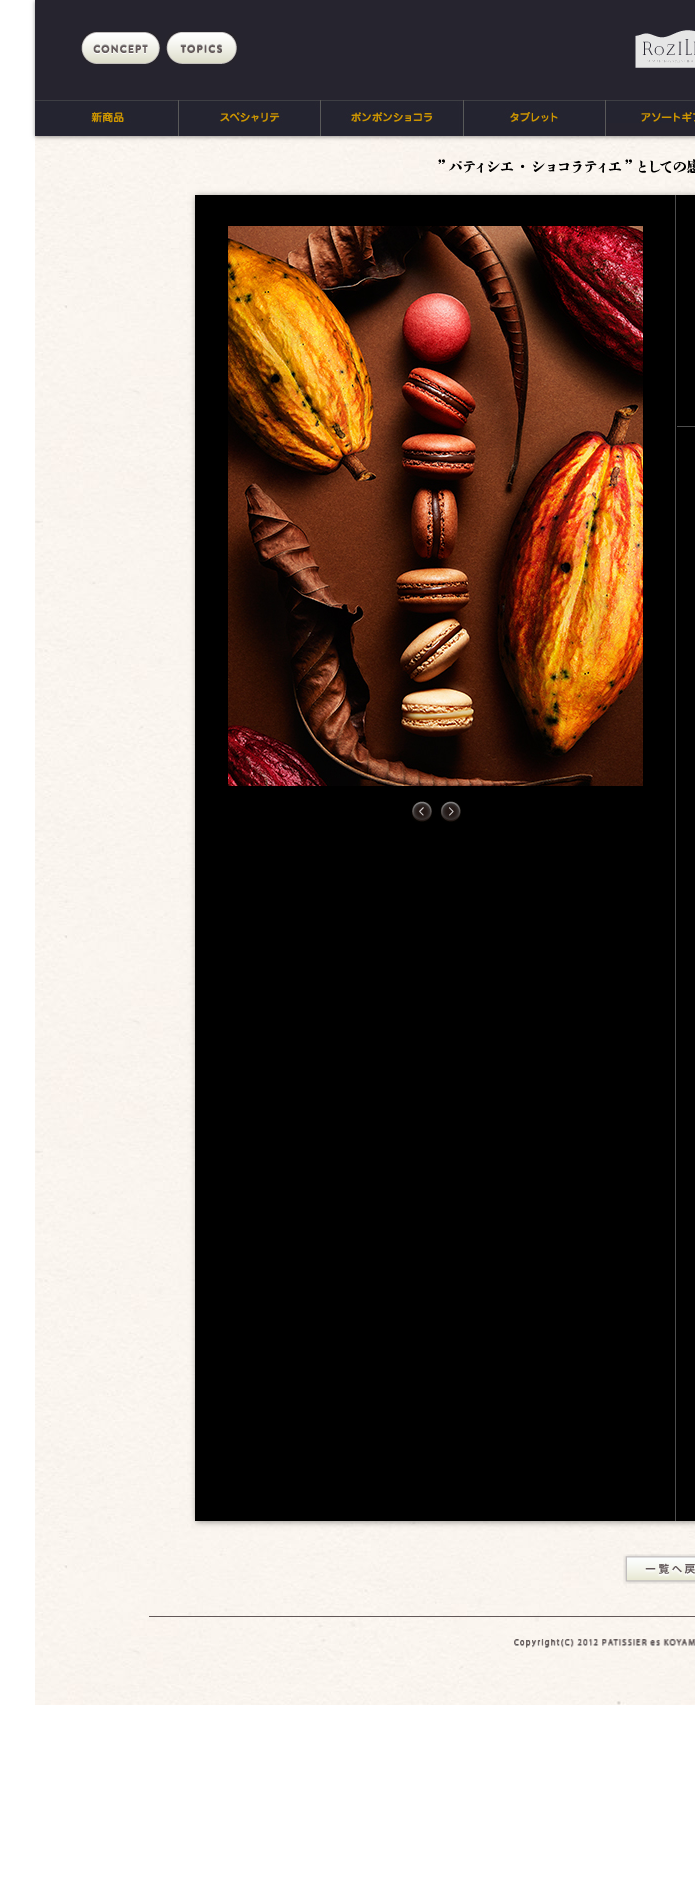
void draw(SkCanvas* canvas) {
    SkPaint paint;
    paint.setAntiAlias(true);
    canvas->clear(0xFFFFFFFF);
    canvas->drawImageRect(SkImages::DeferredFromEncodedData(SkData::MakeFromFileName("img9.png")), SkRect::MakeXYWH(35, 136, 660, 1569), SkSamplingOptions());
    paint.setColor(0x66000000);
    paint.setMaskFilter(SkMaskFilter::MakeBlur(kNormal_SkBlurStyle, 2));
    canvas->drawRect(SkRect::MakeXYWH(35, 1, 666, 136), paint);
    paint.setMaskFilter(nullptr);
    paint.setColor(0xFF26242F);
    canvas->drawRect(SkRect::MakeXYWH(35, 0, 660, 136), paint);
    canvas->drawImageRect(SkImages::DeferredFromEncodedData(SkData::MakeFromFileName("img1.png")), SkRect::MakeXYWH(81, 31, 80, 34), SkSamplingOptions());
    canvas->drawImageRect(SkImages::DeferredFromEncodedData(SkData::MakeFromFileName("img2.png")), SkRect::MakeXYWH(166, 31, 72, 34), SkSamplingOptions());
    canvas->drawImageRect(SkImages::DeferredFromEncodedData(SkData::MakeFromFileName("img3.png")), SkRect::MakeXYWH(635, 30, 60, 38), SkSamplingOptions());
    canvas->drawImageRect(SkImages::DeferredFromEncodedData(SkData::MakeFromFileName("img4.png")), SkRect::MakeXYWH(35, 100, 144, 36), SkSamplingOptions());
    canvas->drawImageRect(SkImages::DeferredFromEncodedData(SkData::MakeFromFileName("img5.png")), SkRect::MakeXYWH(179, 100, 142, 36), SkSamplingOptions());
    canvas->drawImageRect(SkImages::DeferredFromEncodedData(SkData::MakeFromFileName("img6.png")), SkRect::MakeXYWH(321, 100, 143, 36), SkSamplingOptions());
    canvas->drawImageRect(SkImages::DeferredFromEncodedData(SkData::MakeFromFileName("img7.png")), SkRect::MakeXYWH(464, 100, 142, 36), SkSamplingOptions());
    canvas->drawImageRect(SkImages::DeferredFromEncodedData(SkData::MakeFromFileName("img8.png")), SkRect::MakeXYWH(606, 100, 89, 23), SkSamplingOptions());
    canvas->drawImageRect(SkImages::DeferredFromEncodedData(SkData::MakeFromFileName("img10.png")), SkRect::MakeXYWH(438, 159, 257, 14), SkSamplingOptions());
    paint.setColor(0x66000000);
    paint.setMaskFilter(SkMaskFilter::MakeBlur(kNormal_SkBlurStyle, 3));
    canvas->drawRect(SkRect::MakeXYWH(196, 196, 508, 1326), paint);
    paint.setMaskFilter(nullptr);
    paint.setColor(0xFF000000);
    canvas->drawRect(SkRect::MakeXYWH(195, 195, 500, 1326), paint);
    paint.setColor(0xFF4D4D4D);
    canvas->drawRect(SkRect::MakeXYWH(675, 195, 1, 1326), paint);
    canvas->drawImageRect(SkImages::DeferredFromEncodedData(SkData::MakeFromFileName("img11.png")), SkRect::MakeXYWH(228, 226, 415, 560), SkSamplingOptions());
    canvas->drawImageRect(SkImages::DeferredFromEncodedData(SkData::MakeFromFileName("img12.png")), SkRect::MakeXYWH(412, 801, 20, 21), SkSamplingOptions());
    canvas->drawImageRect(SkImages::DeferredFromEncodedData(SkData::MakeFromFileName("img13.png")), SkRect::MakeXYWH(440, 801, 21, 21), SkSamplingOptions());
    canvas->drawRect(SkRect::MakeXYWH(677, 426, 18, 1), paint);
    canvas->drawImageRect(SkImages::DeferredFromEncodedData(SkData::MakeFromFileName("img14.png")), SkRect::MakeXYWH(623, 1554, 72, 30), SkSamplingOptions());
    paint.setColor(0xFF625858);
    canvas->drawRect(SkRect::MakeXYWH(149, 1616, 546, 1), paint);
    canvas->drawImageRect(SkImages::DeferredFromEncodedData(SkData::MakeFromFileName("img15.png")), SkRect::MakeXYWH(514, 1639, 181, 9), SkSamplingOptions());
}
